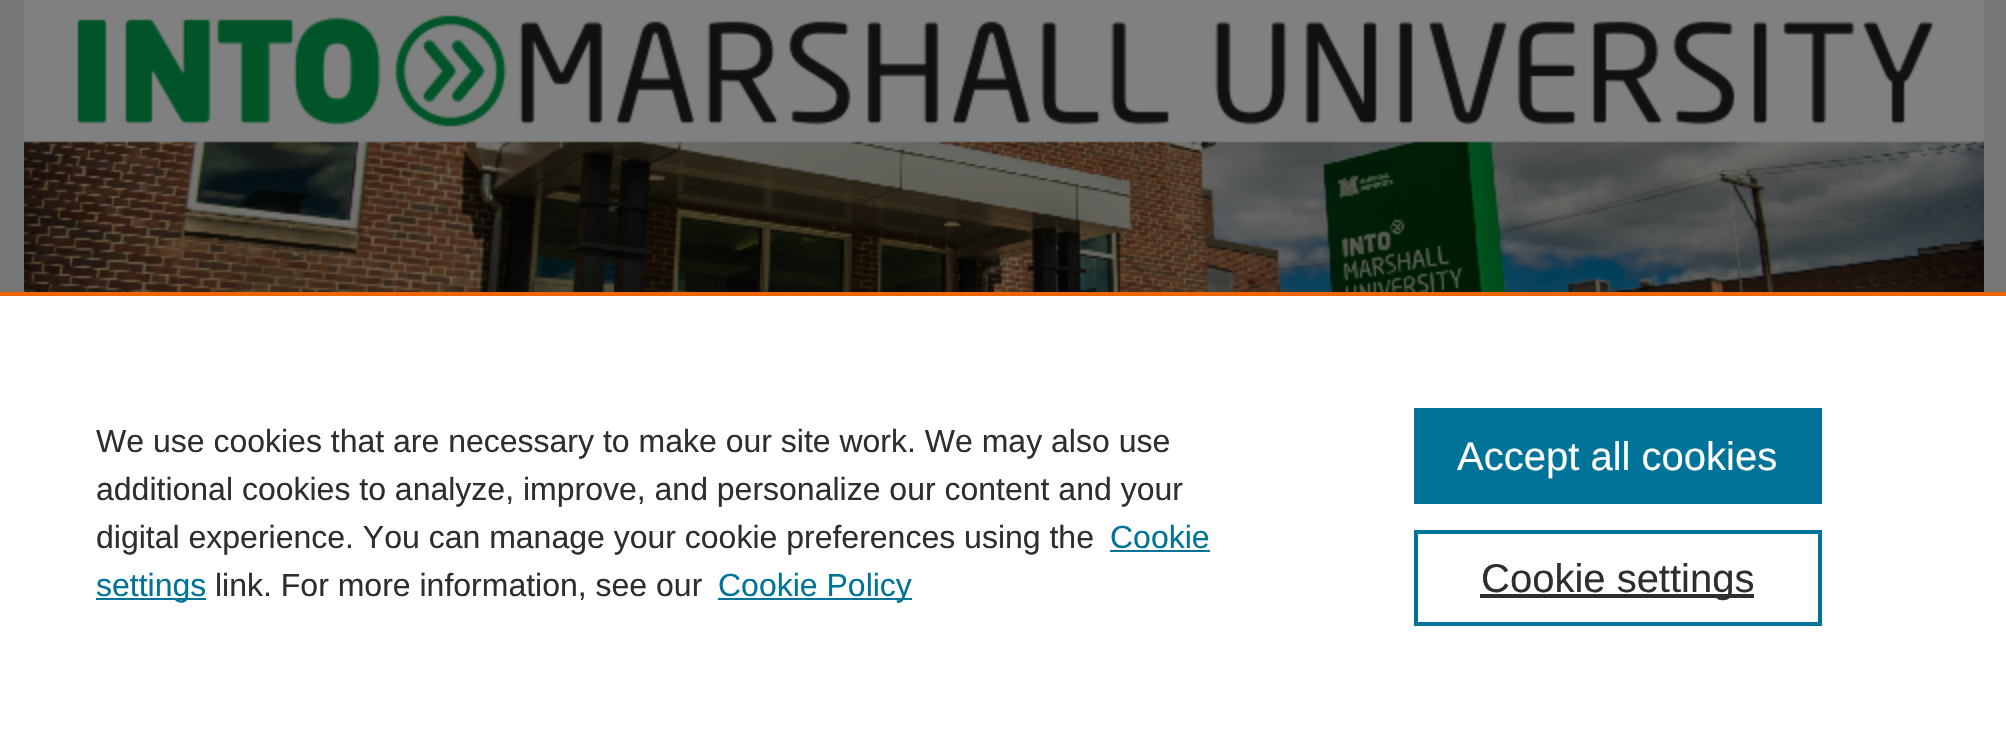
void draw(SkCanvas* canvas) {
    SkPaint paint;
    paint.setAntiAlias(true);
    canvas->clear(0xFF757676);
    paint.setColor(0xFF808080);
    canvas->drawRect(SkRect::MakeXYWH(24, 0, 1960, 15), paint);
    canvas->drawImageRect(SkImages::DeferredFromEncodedData(SkData::MakeFromFileName("img1.png")), SkRect::MakeXYWH(24, 15, 1960, 277), SkSamplingOptions());
    paint.setColor(0xFFFFFFFF);
    canvas->drawRect(SkRect::MakeXYWH(0, 296, 2006, 436), paint);
    paint.setColor(0xFFEB6500);
    canvas->drawRect(SkRect::MakeXYWH(0, 292, 2006, 4), paint);
    SkFont font1(fontMgr->matchFamilyStyle("Liberation Sans", SkFontStyle::Normal()), 32);
    font1.setSubpixel(true);
    paint.setColor(0xFF2E2E2E);
    canvas->drawString("We use cookies that are necessary to make our site work. We may also use", 96, 452, font1, paint);
    canvas->drawString("additional cookies to analyze, improve, and personalize our content and your", 96, 500, font1, paint);
    canvas->drawString("digital experience. You can manage your cookie preferences using the", 96, 548, font1, paint);
    paint.setColor(0xFF007398);
    canvas->drawString("Cookie", 1110, 548, font1, paint);
    canvas->drawRect(SkRect::MakeXYWH(1110, 550, 100, 2), paint);
    canvas->drawRect(SkRect::MakeXYWH(96, 598, 110, 2), paint);
    canvas->drawString("settings", 96, 596, font1, paint);
    paint.setColor(0xFF2E2E2E);
    canvas->drawString("link. For more information, see our", 215, 596, font1, paint);
    paint.setColor(0xFF007398);
    canvas->drawRect(SkRect::MakeXYWH(718, 598, 194, 2), paint);
    canvas->drawString("Cookie Policy", 718, 596, font1, paint);
    canvas->drawRect(SkRect::MakeXYWH(1414, 408, 408, 96), paint);
    SkFont font2(fontMgr->matchFamilyStyle("Liberation Sans", SkFontStyle::Normal()), 40);
    font2.setSubpixel(true);
    paint.setColor(0xFFFFFFFF);
    canvas->drawString("Accept all cookies", 1457, 470, font2, paint);
    paint.setStyle(SkPaint::kStroke_Style);
    paint.setStrokeWidth(4);
    paint.setColor(0xFF007398);
    canvas->drawRect(SkRect::MakeXYWH(1416, 532, 404, 92), paint);
    paint.setStyle(SkPaint::kFill_Style);
    paint.setColor(0xFF2E2E2E);
    canvas->drawRect(SkRect::MakeXYWH(1480, 594, 274, 4), paint);
    canvas->drawString("Cookie settings", 1481, 592, font2, paint);
}
